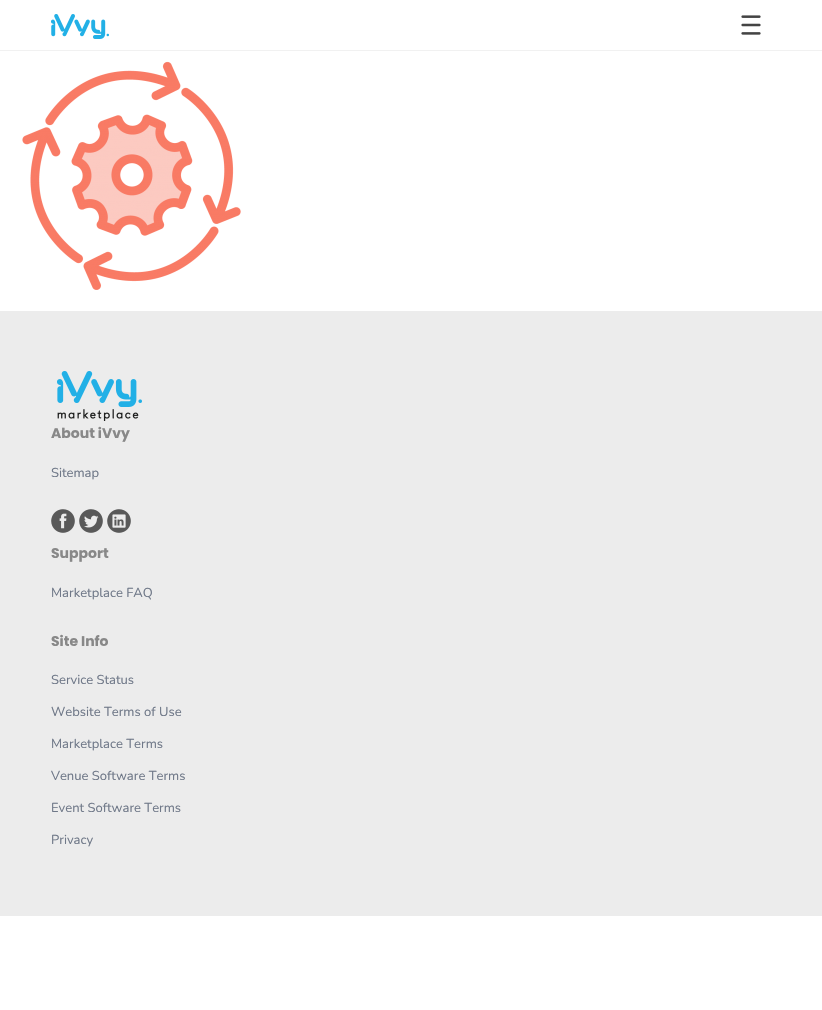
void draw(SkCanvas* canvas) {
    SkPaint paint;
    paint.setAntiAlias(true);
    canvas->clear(0xFFFFFFFF);
    paint.setColor(0xFFF1F1F1);
    canvas->drawRect(SkRect::MakeXYWH(0, 50, 822, 1), paint);
    canvas->drawImageRect(SkImages::DeferredFromEncodedData(SkData::MakeFromFileName("img1.png")), SkRect::MakeXYWH(51, 14, 58, 25), SkSamplingOptions());
    canvas->drawImageRect(SkImages::DeferredFromEncodedData(SkData::MakeFromFileName("img2.png")), SkRect::MakeXYWH(741, 15, 20, 20), SkSamplingOptions());
    canvas->drawImageRect(SkImages::DeferredFromEncodedData(SkData::MakeFromFileName("img3.png")), SkRect::MakeXYWH(22, 61, 219, 229), SkSamplingOptions());
    paint.setColor(0xFFECECEC);
    canvas->drawRect(SkRect::MakeXYWH(0, 311, 822, 605), paint);
    canvas->drawImageRect(SkImages::DeferredFromEncodedData(SkData::MakeFromFileName("img4.png")), SkRect::MakeXYWH(57, 371, 85, 50), SkSamplingOptions());
    SkFont font1(fontMgr->matchFamilyStyle("Poppins", SkFontStyle::Bold()), 14);
    font1.setSubpixel(true);
    paint.setColor(0xFF888888);
    canvas->drawString("About iVvy", 51, 438, font1, paint);
    SkFont font2(fontMgr->matchFamilyStyle("Nunito", SkFontStyle(200, SkFontStyle::kNormal_Width, SkFontStyle::kUpright_Slant)), 13);
    font2.setSubpixel(true);
    paint.setColor(0xFF6F7888);
    canvas->drawString("Sitemap", 51, 477, font2, paint);
    canvas->drawImageRect(SkImages::DeferredFromEncodedData(SkData::MakeFromFileName("img5.png")), SkRect::MakeXYWH(51, 509, 24, 24), SkSamplingOptions());
    canvas->drawImageRect(SkImages::DeferredFromEncodedData(SkData::MakeFromFileName("img6.png")), SkRect::MakeXYWH(79, 509, 24, 24), SkSamplingOptions());
    canvas->drawImageRect(SkImages::DeferredFromEncodedData(SkData::MakeFromFileName("img7.png")), SkRect::MakeXYWH(107, 509, 24, 24), SkSamplingOptions());
    paint.setColor(0xFF888888);
    canvas->drawString("Support", 51, 558, font1, paint);
    paint.setColor(0xFF6F7888);
    canvas->drawString("Marketplace FAQ", 51, 597, font2, paint);
    paint.setColor(0xFF888888);
    canvas->drawString("Site Info", 51, 646, font1, paint);
    paint.setColor(0xFF6F7888);
    canvas->drawString("Service Status", 51, 684, font2, paint);
    canvas->drawString("Website Terms of Use", 51, 716, font2, paint);
    canvas->drawString("Marketplace Terms", 51, 748, font2, paint);
    canvas->drawString("Venue Software Terms", 51, 780, font2, paint);
    canvas->drawString("Event Software Terms", 51, 812, font2, paint);
    canvas->drawString("Privacy", 51, 844, font2, paint);
}
